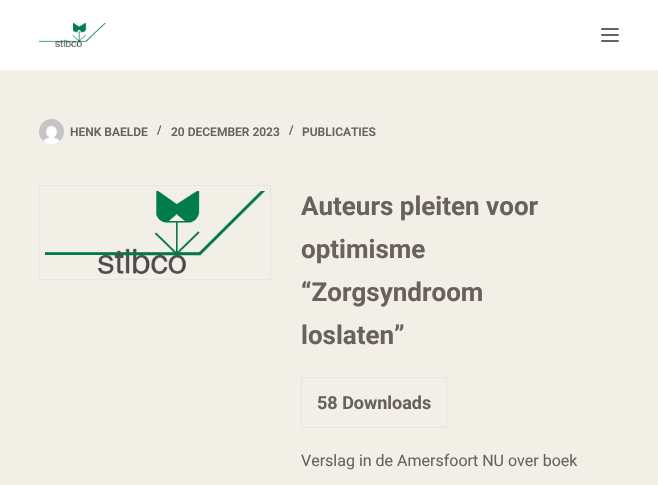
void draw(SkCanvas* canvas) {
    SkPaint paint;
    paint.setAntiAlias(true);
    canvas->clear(0xFFF2EFE7);
    paint.setColor(0xFFFFFFFF);
    canvas->drawRect(SkRect::MakeXYWH(0, 0, 658, 70), paint);
    canvas->drawImageRect(SkImages::DeferredFromEncodedData(SkData::MakeFromFileName("img1.png")), SkRect::MakeXYWH(39, 23, 67, 24), SkSamplingOptions());
    paint.setColor(0xFF6A615D);
    canvas->drawRoundRect(SkRect::MakeXYWH(601, 28, 18, 2), 1, 1, paint);
    canvas->drawRoundRect(SkRect::MakeXYWH(601, 34, 18, 2), 1, 1, paint);
    canvas->drawRoundRect(SkRect::MakeXYWH(601, 40, 18, 2), 1, 1, paint);
    canvas->drawImageRect(SkImages::DeferredFromEncodedData(SkData::MakeFromFileName("img2.png")), SkRect::MakeXYWH(39, 119, 25, 25), SkSamplingOptions());
    SkFont font1(fontMgr->matchFamilyStyle("Roboto", SkFontStyle(600, SkFontStyle::kNormal_Width, SkFontStyle::kUpright_Slant)), 12);
    font1.setSubpixel(true);
    canvas->drawString("HENK BAELDE", 70, 136, font1, paint);
    canvas->drawString("/", 157, 134, font1, paint);
    canvas->drawString("20 DECEMBER 2023", 171, 136, font1, paint);
    canvas->drawString("/", 289, 134, font1, paint);
    canvas->drawString("PUBLICATIES", 302, 136, font1, paint);
    paint.setStyle(SkPaint::kStroke_Style);
    paint.setStrokeWidth(1);
    paint.setColor(0xFFE8E4E3);
    canvas->drawRect(SkRect::MakeXYWH(39.5f, 185.5f, 231, 94), paint);
    canvas->drawImageRect(SkImages::DeferredFromEncodedData(SkData::MakeFromFileName("img3.png")), SkRect::MakeXYWH(45, 191, 220, 83), SkSamplingOptions());
    SkFont font2(fontMgr->matchFamilyStyle("Roboto", SkFontStyle::Bold()), 26);
    font2.setSubpixel(true);
    paint.setStyle(SkPaint::kFill_Style);
    paint.setColor(0xFF6A615D);
    canvas->drawString("Auteurs pleiten voor", 301, 215, font2, paint);
    canvas->drawString("optimisme", 301, 258, font2, paint);
    canvas->drawString("“Zorgsyndroom", 301, 301, font2, paint);
    canvas->drawString("loslaten”", 301, 344, font2, paint);
    paint.setStyle(SkPaint::kStroke_Style);
    paint.setColor(0xFFE8E4E3);
    canvas->drawRect(SkRect::MakeXYWH(301.5f, 377.5f, 145, 50), paint);
    SkFont font3(fontMgr->matchFamilyStyle("Roboto", SkFontStyle::Bold()), 18);
    font3.setSubpixel(true);
    paint.setStyle(SkPaint::kFill_Style);
    paint.setColor(0xFF6A615D);
    canvas->drawString("58 Downloads", 317, 409, font3, paint);
    SkFont font4(fontMgr->matchFamilyStyle("Roboto", SkFontStyle::Normal()), 16);
    font4.setSubpixel(true);
    canvas->drawString("Verslag in de Amersfoort NU over boek", 301, 466, font4, paint);
}
